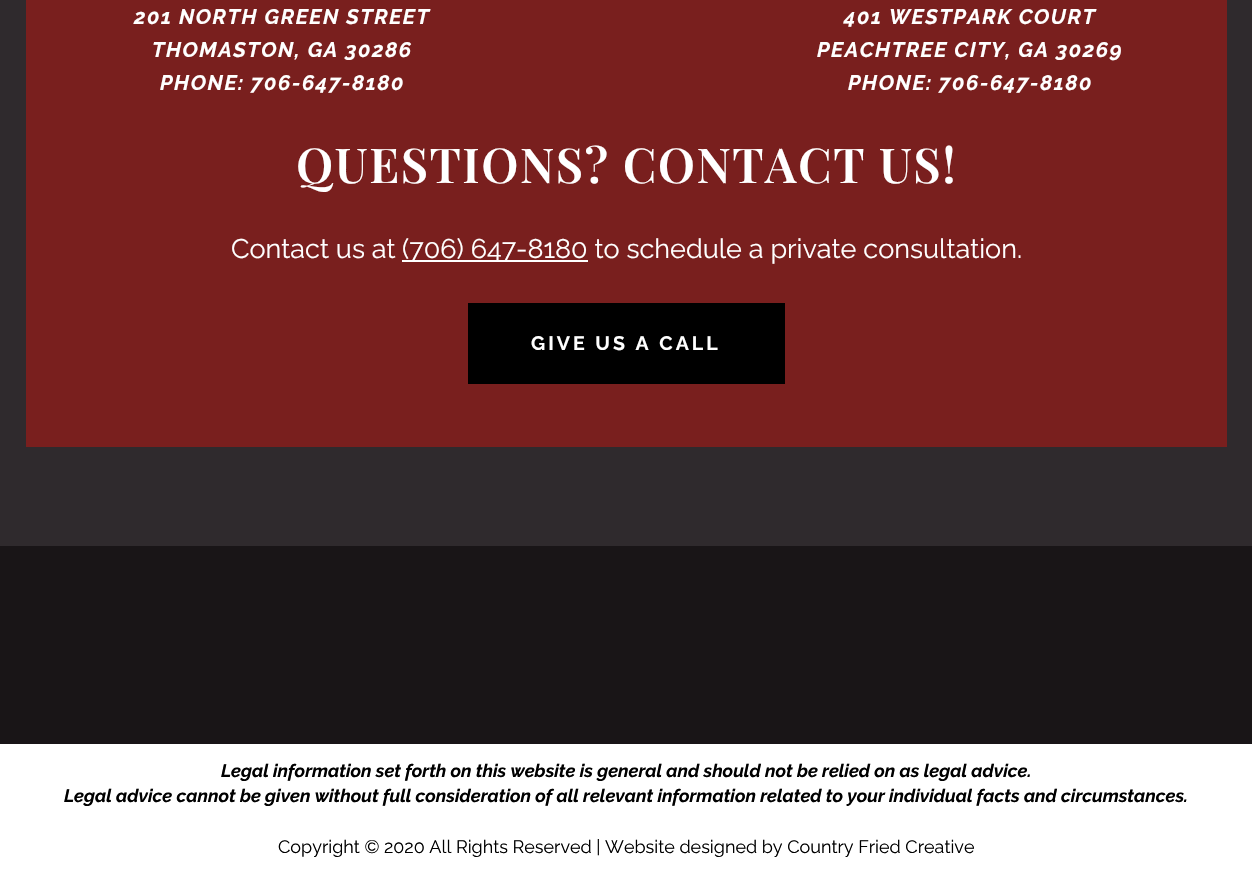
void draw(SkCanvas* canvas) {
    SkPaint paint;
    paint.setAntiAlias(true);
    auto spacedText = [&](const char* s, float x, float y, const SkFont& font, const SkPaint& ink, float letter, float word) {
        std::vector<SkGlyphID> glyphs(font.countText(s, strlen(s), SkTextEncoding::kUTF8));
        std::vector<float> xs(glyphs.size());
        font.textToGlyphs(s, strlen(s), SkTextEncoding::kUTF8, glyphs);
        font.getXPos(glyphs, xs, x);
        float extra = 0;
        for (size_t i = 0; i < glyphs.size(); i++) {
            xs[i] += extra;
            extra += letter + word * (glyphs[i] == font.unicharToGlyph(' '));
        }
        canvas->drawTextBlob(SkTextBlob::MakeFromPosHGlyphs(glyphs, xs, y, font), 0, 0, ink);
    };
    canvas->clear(0xFF2F2A2D);
    paint.setColor(0xFF791F1E);
    canvas->drawRect(SkRect::MakeXYWH(26, 0, 1201, 447), paint);
    SkFont font1(fontMgr->matchFamilyStyle("Raleway", SkFontStyle::BoldItalic()), 21);
    font1.setSubpixel(true);
    paint.setColor(0xFFFFFFFF);
    spacedText("201 NORTH GREEN STREET", 134, 24, font1, paint, 1.5f, 0);
    spacedText("THOMASTON, GA 30286", 152, 57, font1, paint, 1.5f, 0);
    spacedText("PHONE: 706-647-8180", 160, 90, font1, paint, 1.5f, 0);
    spacedText("401 WESTPARK COURT", 844, 24, font1, paint, 1.5f, 0);
    spacedText("PEACHTREE CITY, GA 30269", 817, 57, font1, paint, 1.5f, 0);
    spacedText("PHONE: 706-647-8180", 848, 90, font1, paint, 1.5f, 0);
    SkFont font2(fontMgr->matchFamilyStyle("Playfair Display", SkFontStyle(600, SkFontStyle::kNormal_Width, SkFontStyle::kUpright_Slant)), 48);
    font2.setSubpixel(true);
    spacedText("QUESTIONS? CONTACT US!", 296, 183, font2, paint, 1.5f, 0);
    SkFont font3(fontMgr->matchFamilyStyle("Raleway", SkFontStyle::Normal()), 27);
    font3.setSubpixel(true);
    canvas->drawString("Contact us at", 231, 258, font3, paint);
    canvas->drawRect(SkRect::MakeXYWH(402, 260, 186, 2), paint);
    canvas->drawString("(706) 647-8180 to schedule a private consultation.", 402, 258, font3, paint);
    paint.setColor(0xFF000000);
    canvas->drawRect(SkRect::MakeXYWH(468, 303, 317, 81), paint);
    SkFont font4(fontMgr->matchFamilyStyle("Raleway", SkFontStyle::Bold()), 19.5f);
    font4.setSubpixel(true);
    paint.setColor(0xFFFFFFFF);
    spacedText("GIVE US A CALL", 531, 350, font4, paint, 3, 0);
    paint.setColor(0xFF191517);
    canvas->drawRect(SkRect::MakeXYWH(0, 546, 1252, 198), paint);
    paint.setColor(0xFFFFFFFF);
    canvas->drawRect(SkRect::MakeXYWH(0, 744, 1252, 132), paint);
    SkFont font5(fontMgr->matchFamilyStyle("Raleway", SkFontStyle::BoldItalic()), 18);
    font5.setSubpixel(true);
    paint.setColor(0xFF000000);
    canvas->drawString("Legal information set forth on this website is general and should not be relied on as legal advice.", 221, 777, font5, paint);
    canvas->drawString("Legal advice cannot be given without full consideration of all relevant information related to your individual facts and circumstances.", 64, 802, font5, paint);
    SkFont font6(fontMgr->matchFamilyStyle("Raleway", SkFontStyle::Normal()), 18);
    font6.setSubpixel(true);
    canvas->drawString("Copyright © 2020 All Rights Reserved | Website designed by Country Fried Creative", 278, 853, font6, paint);
}
